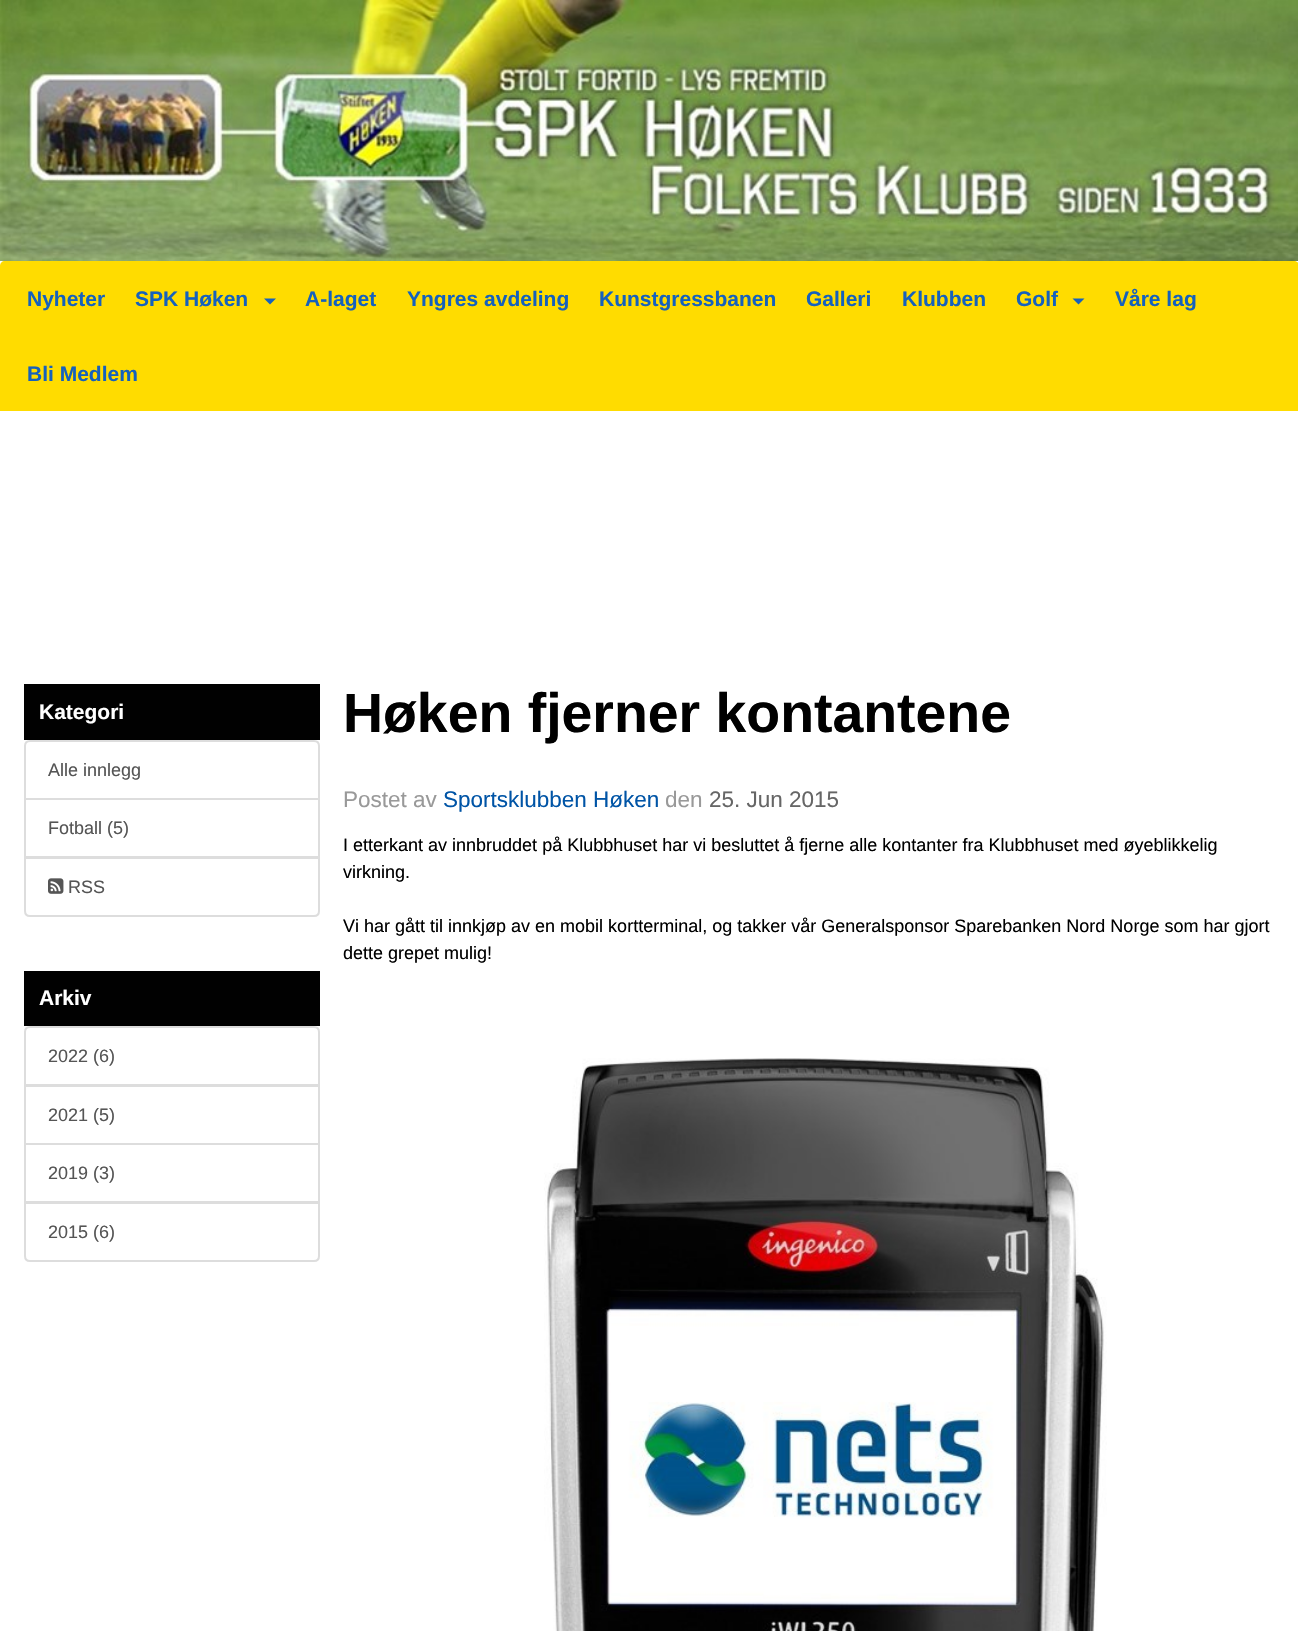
void draw(SkCanvas* canvas) {
    SkPaint paint;
    paint.setAntiAlias(true);
    canvas->clear(0xFFFFFFFF);
    canvas->drawImageRect(SkImages::DeferredFromEncodedData(SkData::MakeFromFileName("img1.png")), SkRect::MakeXYWH(0, 0, 1298, 261), SkSamplingOptions());
    paint.setColor(0xFFFFDC00);
    canvas->drawPath(SkPathBuilder().moveTo(5, 261).lineTo(1294, 261).cubicTo(1297, 261, 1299, 263, 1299, 266).lineTo(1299, 411).lineTo(0, 411).lineTo(0, 266).cubicTo(0, 263, 2, 261, 5, 261).close().detach(), paint);
    SkFont font1(fontMgr->matchFamilyStyle("Liberation Sans", SkFontStyle::Bold()), 21);
    font1.setSubpixel(true);
    paint.setColor(0xFF1561BD);
    canvas->drawString("Nyheter", 27, 306, font1, paint);
    canvas->drawString("SPK Høken", 135, 306, font1, paint);
    canvas->drawPath(SkPathBuilder().moveTo(264, 298.5f).lineTo(276, 298.5f).lineTo(270, 304.5f).close().detach(), paint);
    canvas->drawString("A-laget", 305, 306, font1, paint);
    canvas->drawString("Yngres avdeling", 407, 306, font1, paint);
    canvas->drawString("Kunstgressbanen", 599, 306, font1, paint);
    canvas->drawString("Galleri", 806, 306, font1, paint);
    canvas->drawString("Klubben", 902, 306, font1, paint);
    canvas->drawString("Golf", 1016, 306, font1, paint);
    canvas->drawPath(SkPathBuilder().moveTo(1072.5f, 298.5f).lineTo(1084.5f, 298.5f).lineTo(1078.5f, 304.5f).close().detach(), paint);
    canvas->drawString("Våre lag", 1115, 306, font1, paint);
    canvas->drawString("Bli Medlem", 27, 381, font1, paint);
    paint.setColor(0xFF010101);
    canvas->drawRect(SkRect::MakeXYWH(24, 684, 296, 56), paint);
    paint.setColor(0xFFFFFFFF);
    canvas->drawString("Kategori", 39, 719, font1, paint);
    paint.setStyle(SkPaint::kStroke_Style);
    paint.setStrokeWidth(2);
    paint.setColor(0xFFDDDDDD);
    canvas->drawPath(SkPathBuilder().moveTo(30, 741).lineTo(314, 741).cubicTo(317, 741, 319, 743, 319, 746).lineTo(319, 799).lineTo(25, 799).lineTo(25, 746).cubicTo(25, 743, 27, 741, 30, 741).close().detach(), paint);
    SkFont font2(fontMgr->matchFamilyStyle("Liberation Sans", SkFontStyle::Normal()), 18);
    font2.setSubpixel(true);
    paint.setStyle(SkPaint::kFill_Style);
    paint.setColor(0xFF555555);
    canvas->drawString("Alle innlegg", 48, 776, font2, paint);
    paint.setStyle(SkPaint::kStroke_Style);
    paint.setColor(0xFFDDDDDD);
    canvas->drawRect(SkRect::MakeXYWH(25, 799, 294, 58), paint);
    paint.setStyle(SkPaint::kFill_Style);
    paint.setColor(0xFF555555);
    canvas->drawString("Fotball (5)", 48, 834, font2, paint);
    paint.setColor(0xFFFFFFFF);
    canvas->drawPath(SkPathBuilder().moveTo(25, 858).lineTo(319, 858).lineTo(319, 911).cubicTo(319, 914, 317, 916, 314, 916).lineTo(30, 916).cubicTo(27, 916, 25, 914, 25, 911).close().detach(), paint);
    paint.setStyle(SkPaint::kStroke_Style);
    paint.setColor(0xFFDDDDDD);
    canvas->drawPath(SkPathBuilder().moveTo(25, 858).lineTo(319, 858).lineTo(319, 911).cubicTo(319, 914, 317, 916, 314, 916).lineTo(30, 916).cubicTo(27, 916, 25, 914, 25, 911).close().detach(), paint);
    canvas->drawImageRect(SkImages::DeferredFromEncodedData(SkData::MakeFromFileName("img2.png")), SkRect::MakeXYWH(48, 878, 16, 16), SkSamplingOptions());
    paint.setStyle(SkPaint::kFill_Style);
    paint.setColor(0xFF555555);
    canvas->drawString("RSS", 68, 893, font2, paint);
    paint.setColor(0xFF010101);
    canvas->drawRect(SkRect::MakeXYWH(24, 971, 296, 55), paint);
    paint.setColor(0xFFFFFFFF);
    canvas->drawString("Arkiv", 39, 1005, font1, paint);
    paint.setStyle(SkPaint::kStroke_Style);
    paint.setColor(0xFFDDDDDD);
    canvas->drawPath(SkPathBuilder().moveTo(30, 1027).lineTo(314, 1027).cubicTo(317, 1027, 319, 1029, 319, 1032).lineTo(319, 1085).lineTo(25, 1085).lineTo(25, 1032).cubicTo(25, 1029, 27, 1027, 30, 1027).close().detach(), paint);
    paint.setStyle(SkPaint::kFill_Style);
    paint.setColor(0xFF555555);
    canvas->drawString("2022 (6)", 48, 1062, font2, paint);
    paint.setStyle(SkPaint::kStroke_Style);
    paint.setColor(0xFFDDDDDD);
    canvas->drawRect(SkRect::MakeXYWH(25, 1086, 294, 58), paint);
    paint.setStyle(SkPaint::kFill_Style);
    paint.setColor(0xFF555555);
    canvas->drawString("2021 (5)", 48, 1121, font2, paint);
    paint.setStyle(SkPaint::kStroke_Style);
    paint.setColor(0xFFDDDDDD);
    canvas->drawRect(SkRect::MakeXYWH(25, 1144, 294, 58), paint);
    paint.setStyle(SkPaint::kFill_Style);
    paint.setColor(0xFF555555);
    canvas->drawString("2019 (3)", 48, 1179, font2, paint);
    paint.setColor(0xFFFFFFFF);
    canvas->drawPath(SkPathBuilder().moveTo(25, 1203).lineTo(319, 1203).lineTo(319, 1256).cubicTo(319, 1259, 317, 1261, 314, 1261).lineTo(30, 1261).cubicTo(27, 1261, 25, 1259, 25, 1256).close().detach(), paint);
    paint.setStyle(SkPaint::kStroke_Style);
    paint.setColor(0xFFDDDDDD);
    canvas->drawPath(SkPathBuilder().moveTo(25, 1203).lineTo(319, 1203).lineTo(319, 1256).cubicTo(319, 1259, 317, 1261, 314, 1261).lineTo(30, 1261).cubicTo(27, 1261, 25, 1259, 25, 1256).close().detach(), paint);
    paint.setStyle(SkPaint::kFill_Style);
    paint.setColor(0xFF555555);
    canvas->drawString("2015 (6)", 48, 1238, font2, paint);
    SkFont font3(fontMgr->matchFamilyStyle("Liberation Sans", SkFontStyle::Bold()), 55.4f);
    font3.setSubpixel(true);
    paint.setColor(0xFF000000);
    canvas->drawString("Høken fjerner kontantene", 343, 732, font3, paint);
    SkFont font4(fontMgr->matchFamilyStyle("Liberation Sans", SkFontStyle::Normal()), 22.5f);
    font4.setSubpixel(true);
    paint.setColor(0xFF999999);
    canvas->drawString("Postet av", 343, 807, font4, paint);
    paint.setColor(0xFF0054A6);
    canvas->drawString("Sportsklubben Høken", 443, 807, font4, paint);
    paint.setColor(0xFF999999);
    canvas->drawString("den", 665, 807, font4, paint);
    paint.setColor(0xFF666666);
    canvas->drawString("25. Jun 2015", 709, 807, font4, paint);
    paint.setColor(0xFF000000);
    canvas->drawString("I etterkant av innbruddet på Klubbhuset har vi besluttet å fjerne alle kontanter fra Klubbhuset med øyeblikkelig", 343, 851, font2, paint);
    canvas->drawString("virkning.", 343, 878, font2, paint);
    canvas->drawString("Vi har gått til innkjøp av en mobil kortterminal, og takker vår Generalsponsor Sparebanken Nord Norge som har gjort", 343, 932, font2, paint);
    canvas->drawString("dette grepet mulig!", 343, 959, font2, paint);
    canvas->drawImageRect(SkImages::DeferredFromEncodedData(SkData::MakeFromFileName("img3.png")), SkRect::MakeXYWH(544, 1058, 563, 573), SkSamplingOptions());
}
